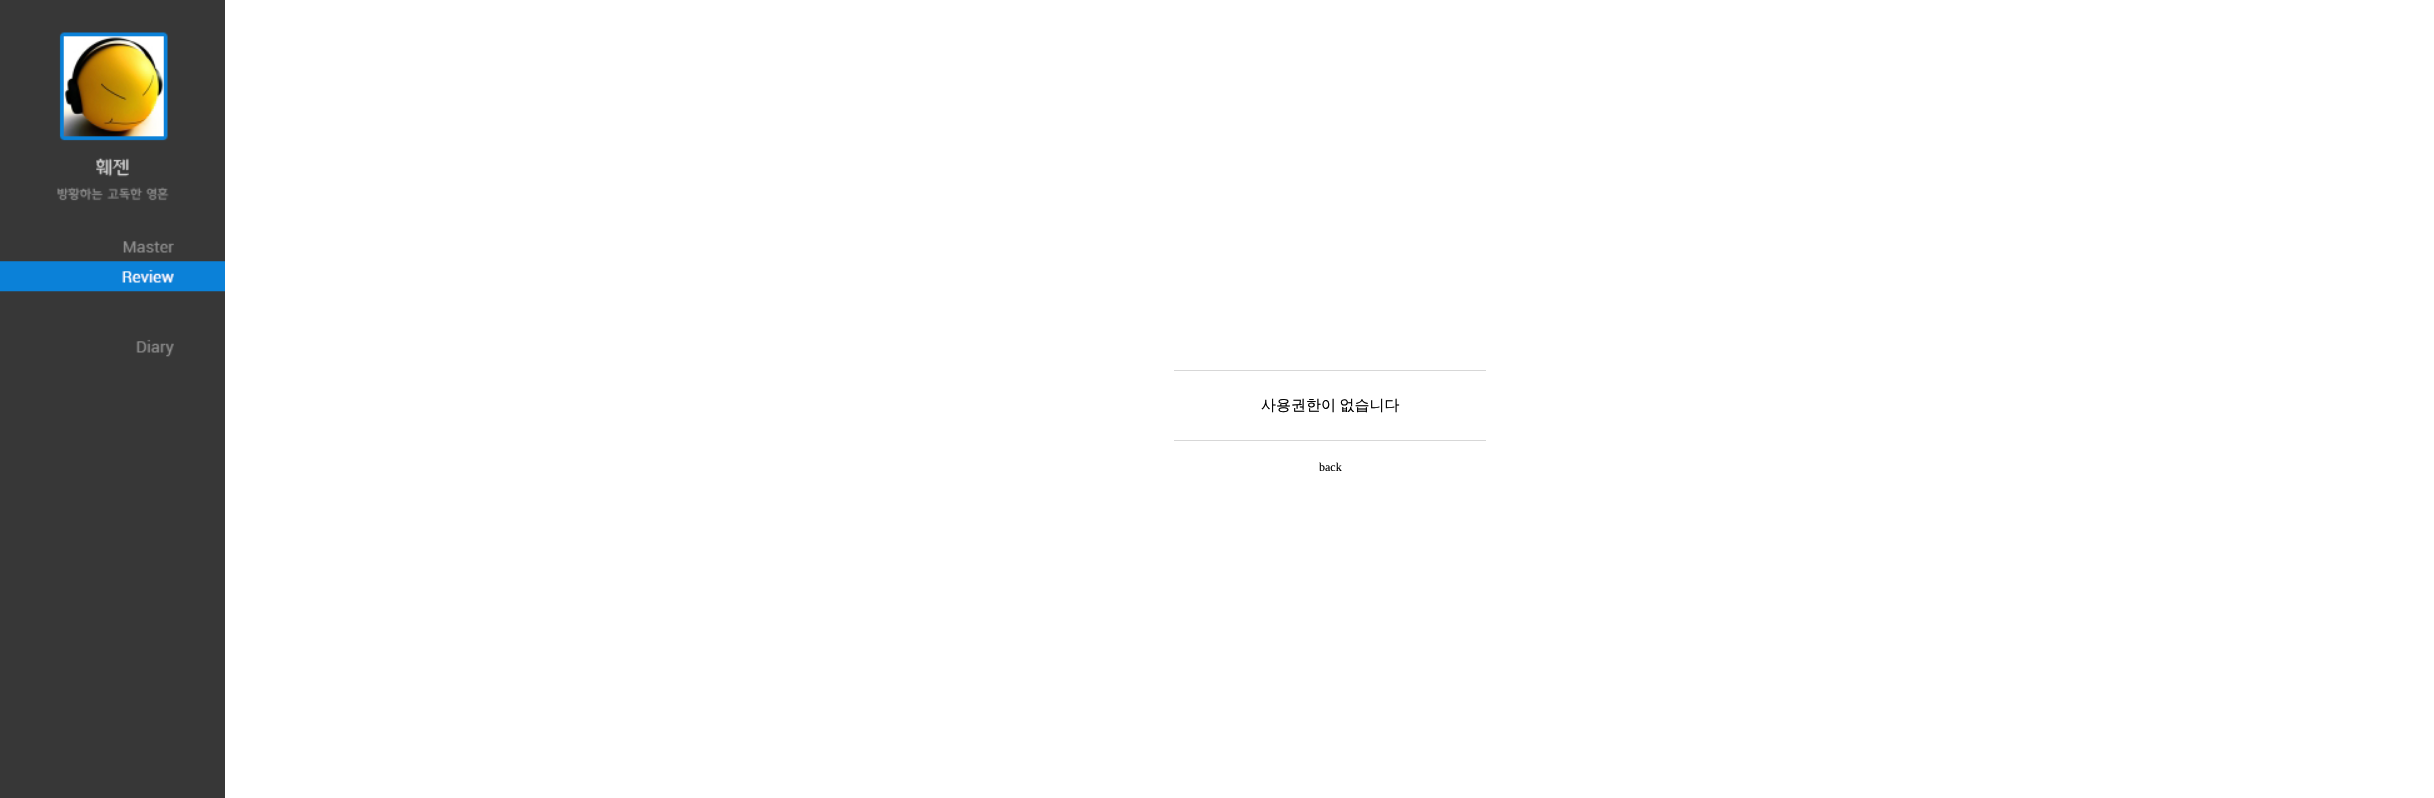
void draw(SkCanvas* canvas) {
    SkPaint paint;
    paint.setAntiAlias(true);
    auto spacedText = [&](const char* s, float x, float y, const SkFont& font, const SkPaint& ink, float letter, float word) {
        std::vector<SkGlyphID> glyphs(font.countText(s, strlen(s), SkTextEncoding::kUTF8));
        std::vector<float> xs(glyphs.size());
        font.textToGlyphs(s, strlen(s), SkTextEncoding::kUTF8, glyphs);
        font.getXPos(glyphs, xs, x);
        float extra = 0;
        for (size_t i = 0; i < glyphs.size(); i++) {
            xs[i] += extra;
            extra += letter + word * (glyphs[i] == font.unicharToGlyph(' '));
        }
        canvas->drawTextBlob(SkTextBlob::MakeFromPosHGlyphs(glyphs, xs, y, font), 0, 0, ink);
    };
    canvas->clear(0xFFFFFFFF);
    paint.setColor(0xFF373737);
    canvas->drawRect(SkRect::MakeXYWH(0, 0, 225, 798), paint);
    canvas->drawImageRect(SkImages::DeferredFromEncodedData(SkData::MakeFromFileName("img1.png")), SkRect::MakeXYWH(57, 32, 112, 169), SkSamplingOptions());
    canvas->drawImageRect(SkImages::DeferredFromEncodedData(SkData::MakeFromFileName("img2.png")), SkRect::MakeXYWH(123, 241, 51, 12), SkSamplingOptions());
    canvas->drawImageRect(SkImages::DeferredFromEncodedData(SkData::MakeFromFileName("img3.png")), SkRect::MakeXYWH(0, 261, 225, 31), SkSamplingOptions());
    canvas->drawImageRect(SkImages::DeferredFromEncodedData(SkData::MakeFromFileName("img4.png")), SkRect::MakeXYWH(136, 339, 38, 18), SkSamplingOptions());
    paint.setColor(0xFFD7D7D7);
    canvas->drawRect(SkRect::MakeXYWH(1174, 370, 312, 1), paint);
    SkFont font1(fontMgr->matchFamilyStyle("WenQuanYi Zen Hei", SkFontStyle(500, SkFontStyle::kNormal_Width, SkFontStyle::kUpright_Slant)), 15);
    font1.setSubpixel(true);
    paint.setColor(0xFF000000);
    spacedText("사용권한이 없습니다", 1261, 410, font1, paint, 0, -1);
    paint.setColor(0xFFD7D7D7);
    canvas->drawRect(SkRect::MakeXYWH(1174, 440, 312, 1), paint);
    SkFont font2(fontMgr->matchFamilyStyle("Liberation Serif", SkFontStyle::Normal()), 12);
    font2.setSubpixel(true);
    paint.setColor(0xFF000000);
    canvas->drawString("back", 1319, 471, font2, paint);
}
